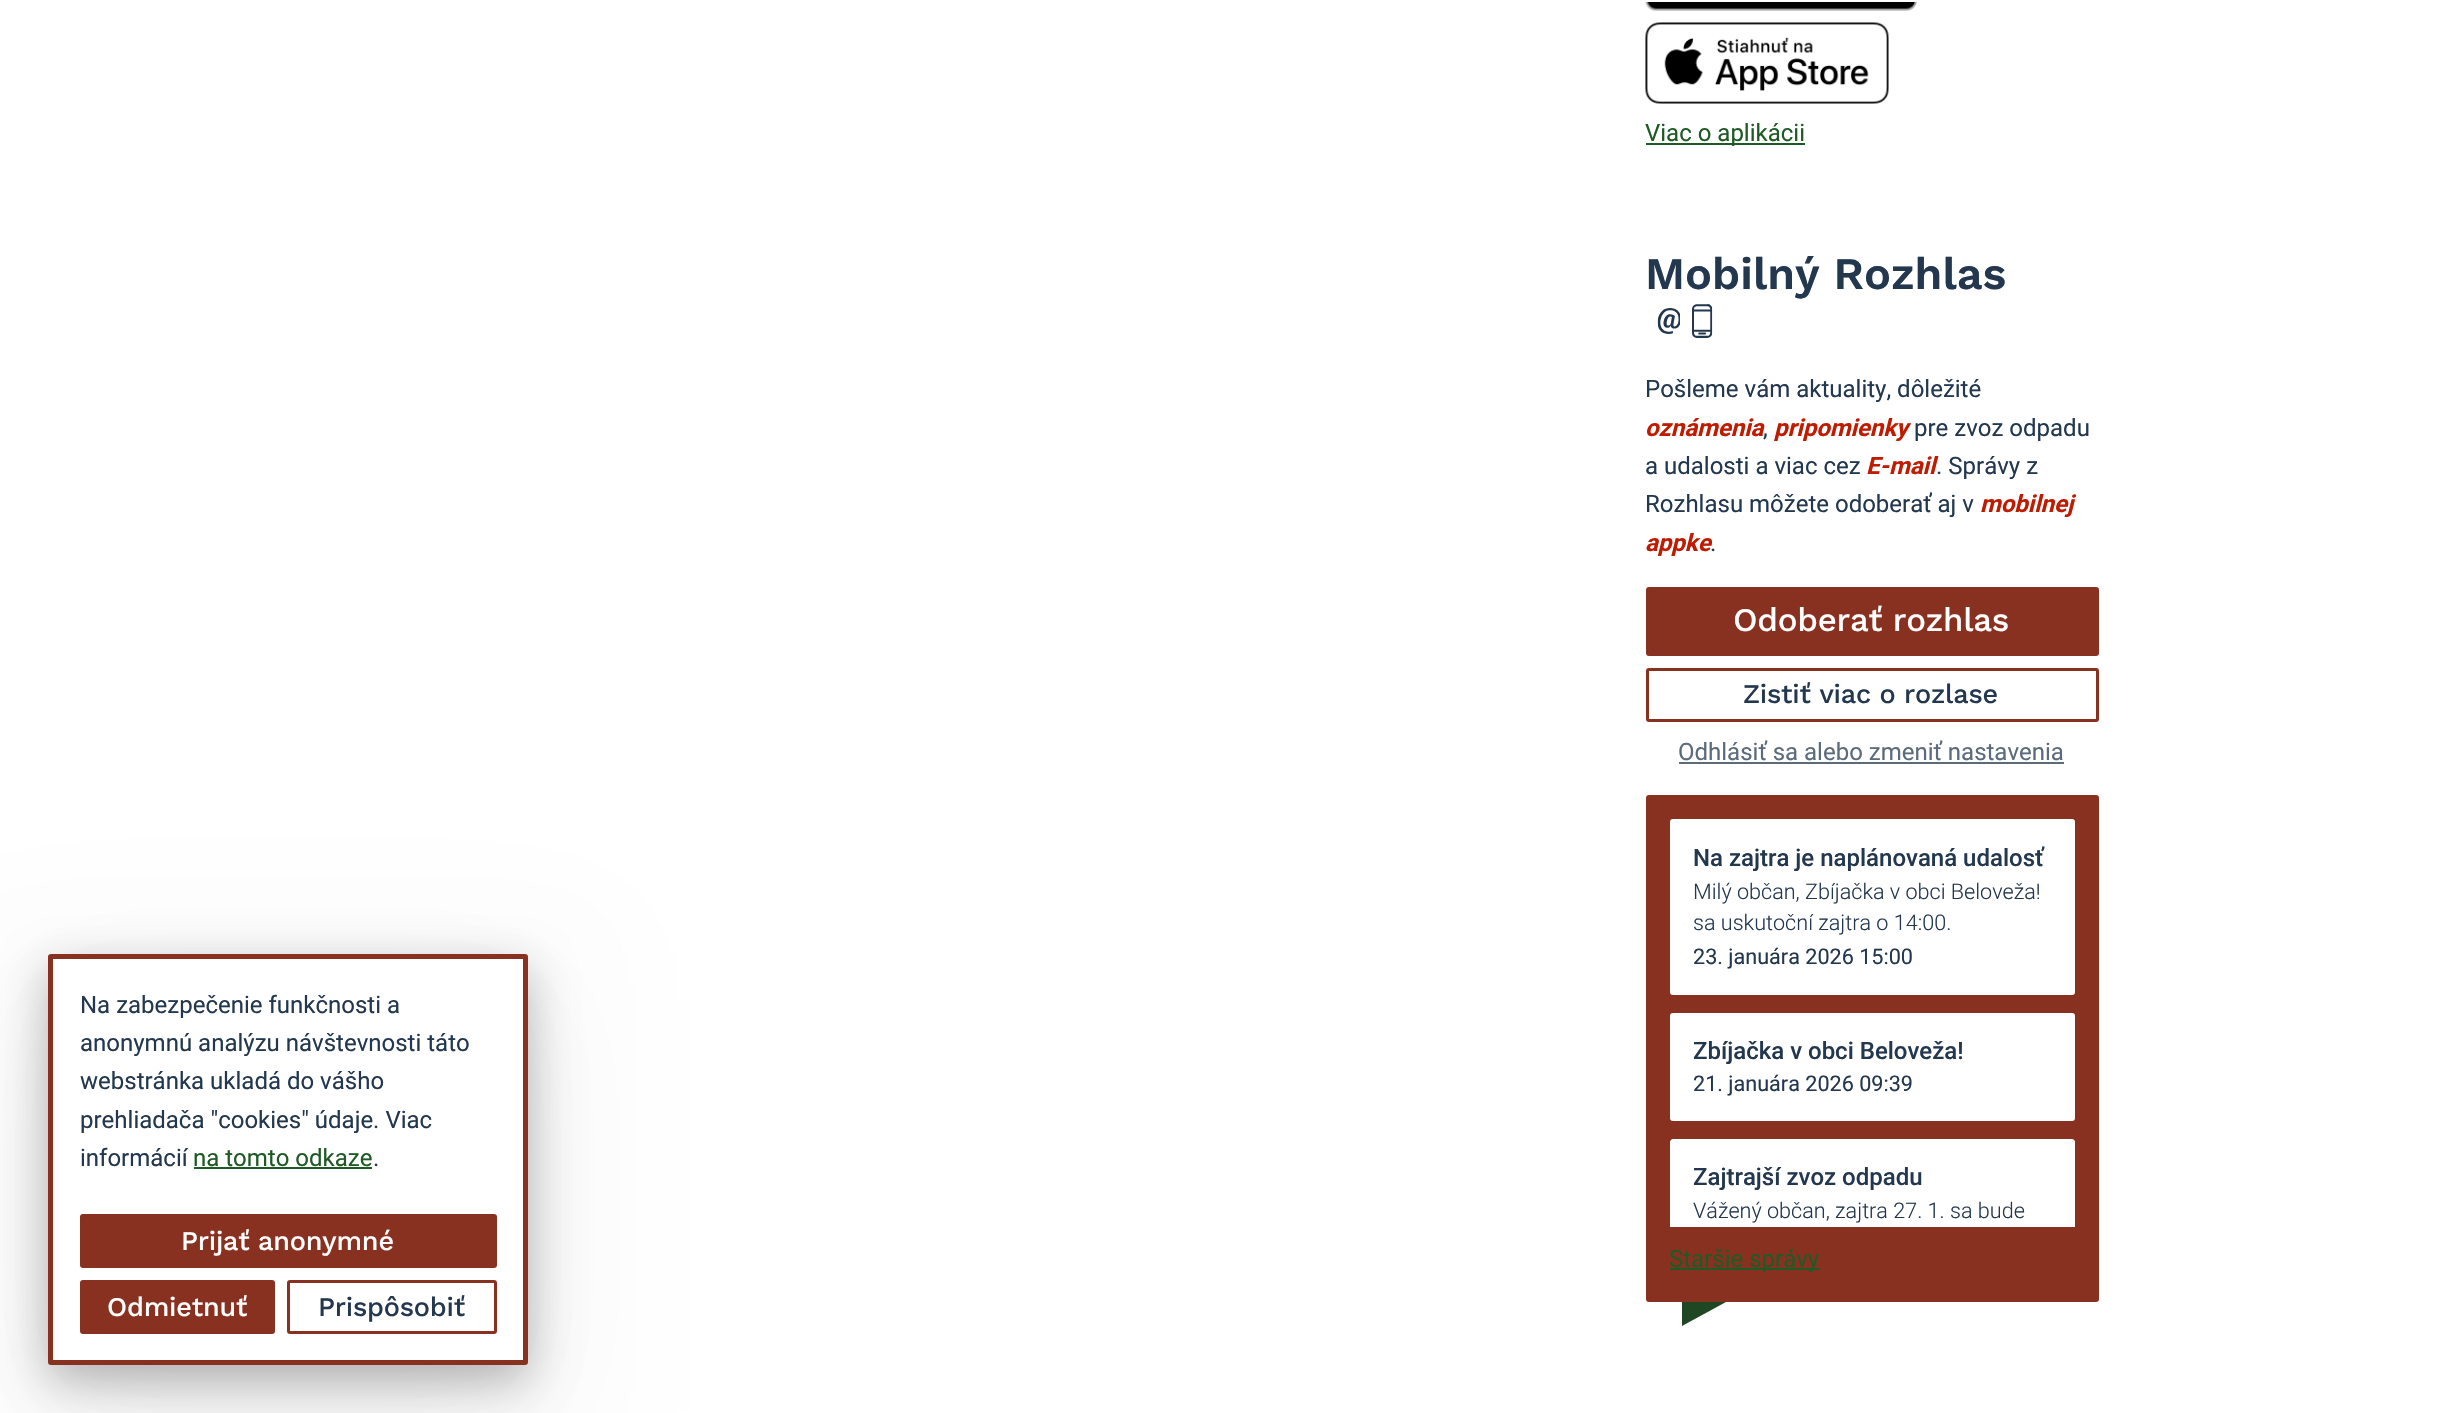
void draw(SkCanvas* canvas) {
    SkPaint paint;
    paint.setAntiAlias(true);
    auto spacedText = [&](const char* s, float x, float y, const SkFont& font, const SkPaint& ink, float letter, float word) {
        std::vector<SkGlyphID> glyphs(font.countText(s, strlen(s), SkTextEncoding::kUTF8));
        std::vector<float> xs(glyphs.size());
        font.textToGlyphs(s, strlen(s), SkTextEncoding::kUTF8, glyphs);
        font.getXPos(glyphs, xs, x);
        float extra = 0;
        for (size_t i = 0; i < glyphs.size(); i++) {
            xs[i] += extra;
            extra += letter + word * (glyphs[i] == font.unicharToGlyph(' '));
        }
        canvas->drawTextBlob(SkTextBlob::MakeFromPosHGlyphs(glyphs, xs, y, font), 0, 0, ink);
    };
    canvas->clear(0xFFFFFFFF);
    paint.setColor(0x0D000000);
    paint.setMaskFilter(SkMaskFilter::MakeBlur(kNormal_SkBlurStyle, 67.5f));
    canvas->drawRoundRect(SkRect::MakeXYWH(48, 999, 480, 411), 3, 3, paint);
    paint.setMaskFilter(nullptr);
    paint.setMaskFilter(SkMaskFilter::MakeBlur(kNormal_SkBlurStyle, 45));
    canvas->drawRoundRect(SkRect::MakeXYWH(48, 984, 480, 411), 3, 3, paint);
    paint.setMaskFilter(nullptr);
    paint.setColor(0x40000000);
    paint.setMaskFilter(SkMaskFilter::MakeBlur(kNormal_SkBlurStyle, 22.5f));
    canvas->drawRoundRect(SkRect::MakeXYWH(48, 969, 480, 411), 3, 3, paint);
    paint.setMaskFilter(nullptr);
    paint.setColor(0xFFFFFFFF);
    canvas->drawRoundRect(SkRect::MakeXYWH(50.5f, 956.5f, 475, 406), 0.5f, 0.5f, paint);
    paint.setStyle(SkPaint::kStroke_Style);
    paint.setStrokeWidth(5);
    paint.setColor(0xFF893120);
    canvas->drawRoundRect(SkRect::MakeXYWH(50.5f, 956.5f, 475, 406), 0.5f, 0.5f, paint);
    SkFont font1(fontMgr->matchFamilyStyle("Roboto", SkFontStyle::Normal()), 24);
    font1.setSubpixel(true);
    paint.setStyle(SkPaint::kFill_Style);
    paint.setColor(0xFF23384F);
    canvas->drawString("Na zabezpečenie funkčnosti a", 80, 1013, font1, paint);
    canvas->drawString("anonymnú analýzu návštevnosti táto", 80, 1051, font1, paint);
    canvas->drawString("webstránka ukladá do vášho", 80, 1089, font1, paint);
    canvas->drawString("prehliadača \"cookies\" údaje. Viac", 80, 1128, font1, paint);
    canvas->drawString("informácií", 80, 1166, font1, paint);
    paint.setColor(0xFF1F5A25);
    canvas->drawString("na tomto odkaze", 193, 1166, font1, paint);
    canvas->drawRect(SkRect::MakeXYWH(194, 1167, 178, 2), paint);
    paint.setColor(0xFF23384F);
    canvas->drawString(".", 373, 1166, font1, paint);
    paint.setColor(0xFF893120);
    canvas->drawRoundRect(SkRect::MakeXYWH(81.5f, 1215.5f, 414, 51), 1.5f, 1.5f, paint);
    paint.setStyle(SkPaint::kStroke_Style);
    paint.setStrokeWidth(3);
    canvas->drawRoundRect(SkRect::MakeXYWH(81.5f, 1215.5f, 414, 51), 1.5f, 1.5f, paint);
    SkFont font2(fontMgr->matchFamilyStyle("Work Sans", SkFontStyle(500, SkFontStyle::kNormal_Width, SkFontStyle::kUpright_Slant)), 27);
    font2.setSubpixel(true);
    paint.setStyle(SkPaint::kFill_Style);
    paint.setColor(0xFFFFFFFF);
    spacedText("Prijať anonymné", 181, 1250, font2, paint, -0.2f, 0);
    paint.setColor(0xFF893120);
    canvas->drawRoundRect(SkRect::MakeXYWH(81.5f, 1281.5f, 192, 51), 1.5f, 1.5f, paint);
    paint.setStyle(SkPaint::kStroke_Style);
    canvas->drawRoundRect(SkRect::MakeXYWH(81.5f, 1281.5f, 192, 51), 1.5f, 1.5f, paint);
    paint.setStyle(SkPaint::kFill_Style);
    paint.setColor(0xFFFFFFFF);
    spacedText("Odmietnuť", 107, 1316, font2, paint, -0.2f, 0);
    paint.setStyle(SkPaint::kStroke_Style);
    paint.setColor(0xFF893120);
    canvas->drawRoundRect(SkRect::MakeXYWH(288.5f, 1281.5f, 207, 51), 1.5f, 1.5f, paint);
    paint.setStyle(SkPaint::kFill_Style);
    paint.setColor(0xFF23384F);
    spacedText("Prispôsobiť", 318, 1316, font2, paint, -0.2f, 0);
    canvas->drawImageRect(SkImages::DeferredFromEncodedData(SkData::MakeFromFileName("img1.png")), SkRect::MakeXYWH(1645, 2, 272, 9), SkSamplingOptions());
    canvas->drawImageRect(SkImages::DeferredFromEncodedData(SkData::MakeFromFileName("img2.png")), SkRect::MakeXYWH(1645, 22, 244, 82), SkSamplingOptions());
    paint.setColor(0xFF1F5A25);
    canvas->drawRect(SkRect::MakeXYWH(1646, 143, 159, 2), paint);
    canvas->drawString("Viac o aplikácii", 1645, 141, font1, paint);
    SkFont font3(fontMgr->matchFamilyStyle("Work Sans", SkFontStyle(600, SkFontStyle::kNormal_Width, SkFontStyle::kUpright_Slant)), 45);
    font3.setSubpixel(true);
    paint.setColor(0xFF23384F);
    canvas->drawString("Mobilný Rozhlas", 1645, 289, font3, paint);
    canvas->drawImageRect(SkImages::DeferredFromEncodedData(SkData::MakeFromFileName("img3.png")), SkRect::MakeXYWH(1657, 308, 23, 26), SkSamplingOptions());
    canvas->drawImageRect(SkImages::DeferredFromEncodedData(SkData::MakeFromFileName("img4.png")), SkRect::MakeXYWH(1692, 304, 21, 34), SkSamplingOptions());
    canvas->drawString("Pošleme vám aktuality, dôležité", 1645, 397, font1, paint);
    SkFont font4(fontMgr->matchFamilyStyle("Roboto", SkFontStyle::BoldItalic()), 24);
    font4.setSubpixel(true);
    paint.setColor(0xFFBF1B00);
    canvas->drawString("oznámenia", 1645, 436, font4, paint);
    canvas->drawString("pripomienky", 1774, 436, font4, paint);
    paint.setColor(0xFF23384F);
    canvas->drawString("pre zvoz odpadu", 1914, 436, font1, paint);
    canvas->drawString(",", 1763, 436, font1, paint);
    canvas->drawString("a udalosti a viac cez", 1645, 474, font1, paint);
    paint.setColor(0xFFBF1B00);
    canvas->drawString("E-mail", 1866, 474, font4, paint);
    paint.setColor(0xFF23384F);
    canvas->drawString(". Správy z", 1936, 474, font1, paint);
    canvas->drawString("Rozhlasu môžete odoberať aj v", 1645, 512, font1, paint);
    paint.setColor(0xFFBF1B00);
    canvas->drawString("mobilnej", 1980, 512, font4, paint);
    canvas->drawString("appke", 1645, 551, font4, paint);
    paint.setColor(0xFF23384F);
    canvas->drawString(".", 1710, 551, font1, paint);
    paint.setColor(0xFF893120);
    canvas->drawRoundRect(SkRect::MakeXYWH(1647.5f, 588.5f, 450, 66), 1.5f, 1.5f, paint);
    paint.setStyle(SkPaint::kStroke_Style);
    canvas->drawRoundRect(SkRect::MakeXYWH(1647.5f, 588.5f, 450, 66), 1.5f, 1.5f, paint);
    SkFont font5(fontMgr->matchFamilyStyle("Work Sans", SkFontStyle(500, SkFontStyle::kNormal_Width, SkFontStyle::kUpright_Slant)), 33);
    font5.setSubpixel(true);
    paint.setStyle(SkPaint::kFill_Style);
    paint.setColor(0xFFFFFFFF);
    spacedText("Odoberať rozhlas", 1733, 631, font5, paint, -0.25f, 0);
    paint.setStyle(SkPaint::kStroke_Style);
    paint.setColor(0xFF893120);
    canvas->drawRoundRect(SkRect::MakeXYWH(1647.5f, 669.5f, 450, 51), 1.5f, 1.5f, paint);
    paint.setStyle(SkPaint::kFill_Style);
    paint.setColor(0xFF23384F);
    spacedText("Zistiť viac o rozlase", 1743, 703, font2, paint, -0.2f, 0);
    paint.setColor(0xFF5B6B7B);
    canvas->drawString("Odhlásiť sa alebo zmeniť nastavenia", 1678, 760, font1, paint);
    canvas->drawRect(SkRect::MakeXYWH(1679, 762, 385, 2), paint);
    paint.setColor(0xFF893120);
    canvas->drawRoundRect(SkRect::MakeXYWH(1646, 795, 453, 507), 3, 3, paint);
    paint.setColor(0xFFFFFFFF);
    canvas->drawRoundRect(SkRect::MakeXYWH(1670, 819, 405, 176), 3, 3, paint);
    SkFont font6(fontMgr->matchFamilyStyle("Roboto", SkFontStyle(500, SkFontStyle::kNormal_Width, SkFontStyle::kUpright_Slant)), 24);
    font6.setSubpixel(true);
    paint.setColor(0xFF23384F);
    canvas->drawString("Na zajtra je naplánovaná udalosť", 1693, 866, font6, paint);
    SkFont font7(fontMgr->matchFamilyStyle("Roboto", SkFontStyle(300, SkFontStyle::kNormal_Width, SkFontStyle::kUpright_Slant)), 21.6f);
    font7.setSubpixel(true);
    canvas->drawString("Milý občan, Zbíjačka v obci Beloveža!", 1693, 899, font7, paint);
    canvas->drawString("sa uskutoční zajtra o 14:00.", 1693, 930, font7, paint);
    SkFont font8(fontMgr->matchFamilyStyle("Roboto", SkFontStyle::Normal()), 21.6f);
    font8.setSubpixel(true);
    canvas->drawString("23. januára 2026 15:00", 1693, 964, font8, paint);
    paint.setColor(0xFFFFFFFF);
    canvas->drawRoundRect(SkRect::MakeXYWH(1670, 1013, 405, 108), 3, 3, paint);
    paint.setColor(0xFF23384F);
    canvas->drawString("Zbíjačka v obci Beloveža!", 1693, 1059, font6, paint);
    canvas->drawString("21. januára 2026 09:39", 1693, 1091, font8, paint);
    paint.setColor(0xFFFFFFFF);
    canvas->drawPath(SkPathBuilder().moveTo(1673, 1139).lineTo(2072, 1139).cubicTo(2073.5f, 1139, 2075, 1140.5f, 2075, 1142).lineTo(2075, 1227).lineTo(1670, 1227).lineTo(1670, 1142).cubicTo(1670, 1140.5f, 1671.5f, 1139, 1673, 1139).close().detach(), paint);
    paint.setColor(0xFF23384F);
    canvas->drawString("Zajtrajší zvoz odpadu", 1693, 1185, font6, paint);
    canvas->drawString("Vážený občan, zajtra 27. 1. sa bude", 1693, 1218, font7, paint);
    paint.setColor(0xFF1F5A25);
    canvas->drawRect(SkRect::MakeXYWH(1670, 1268, 150, 2), paint);
    canvas->drawString("Staršie správy", 1669, 1267, font1, paint);
    paint.setColor(0xFF1F4723);
    canvas->drawPath(SkPathBuilder().moveTo(1682, 1302).lineTo(1726, 1302).lineTo(1682, 1326).close().detach(), paint);
}
